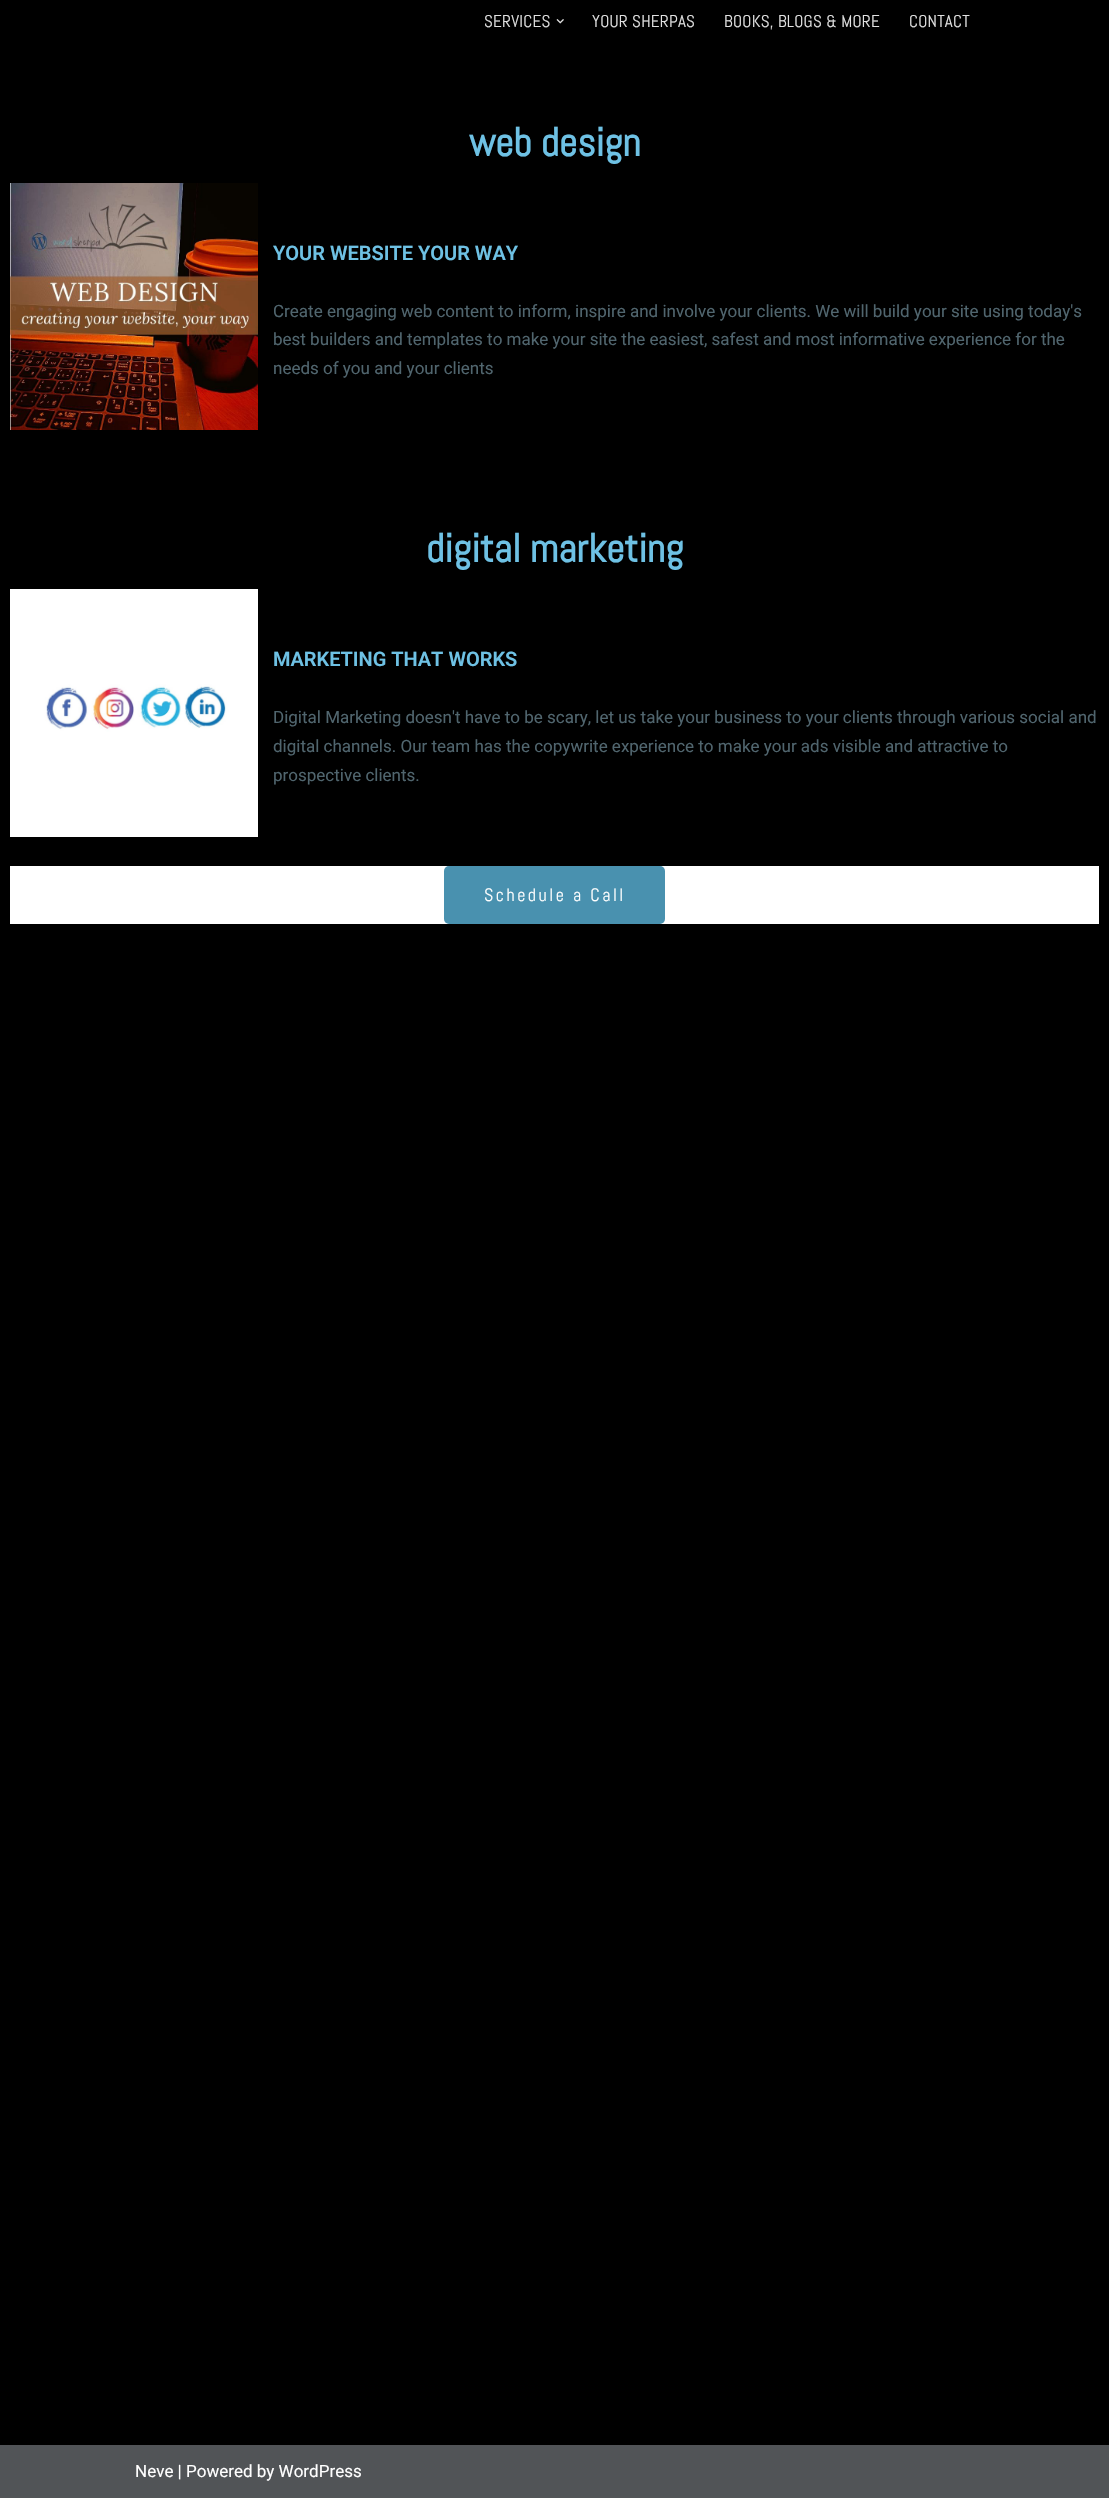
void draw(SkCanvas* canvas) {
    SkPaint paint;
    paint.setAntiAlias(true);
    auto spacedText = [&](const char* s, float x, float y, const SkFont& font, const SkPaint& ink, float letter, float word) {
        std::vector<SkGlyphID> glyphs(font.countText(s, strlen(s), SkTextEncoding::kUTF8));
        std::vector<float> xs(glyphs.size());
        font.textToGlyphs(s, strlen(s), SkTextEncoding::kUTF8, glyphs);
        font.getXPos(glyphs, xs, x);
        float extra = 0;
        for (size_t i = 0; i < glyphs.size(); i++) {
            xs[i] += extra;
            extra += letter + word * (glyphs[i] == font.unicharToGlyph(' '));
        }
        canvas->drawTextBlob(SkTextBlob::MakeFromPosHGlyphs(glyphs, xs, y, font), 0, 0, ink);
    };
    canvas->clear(0xFF000000);
    SkFont font1(fontMgr->matchFamilyStyle("Abel", SkFontStyle::Normal()), 17);
    font1.setSubpixel(true);
    paint.setColor(0xFFE1E1E1);
    spacedText("SERVICES", 484, 27, font1, paint, 0.25f, 0);
    canvas->drawImageRect(SkImages::DeferredFromEncodedData(SkData::MakeFromFileName("img1.png")), SkRect::MakeXYWH(556, 19, 8, 5), SkSamplingOptions());
    spacedText("YOUR SHERPAS", 592, 27, font1, paint, 0.25f, 0);
    spacedText("BOOKS, BLOGS & MORE", 724, 27, font1, paint, 0.25f, 0);
    spacedText("CONTACT", 909, 27, font1, paint, 0.25f, 0);
    SkFont font2(fontMgr->matchFamilyStyle("Abel", SkFontStyle::Bold()), 40);
    font2.setSubpixel(true);
    paint.setColor(0xFF6EC1E4);
    canvas->drawString("web design", 469, 156, font2, paint);
    canvas->drawImageRect(SkImages::DeferredFromEncodedData(SkData::MakeFromFileName("img2.png")), SkRect::MakeXYWH(10, 183, 248, 247), SkSamplingOptions());
    SkFont font3(fontMgr->matchFamilyStyle("Roboto", SkFontStyle(600, SkFontStyle::kNormal_Width, SkFontStyle::kUpright_Slant)), 20);
    font3.setSubpixel(true);
    canvas->drawString("YOUR WEBSITE YOUR WAY", 273, 260, font3, paint);
    SkFont font4(fontMgr->matchFamilyStyle("Roboto", SkFontStyle::Normal()), 17);
    font4.setSubpixel(true);
    paint.setColor(0xFF50656E);
    canvas->drawString("Create engaging web content to inform, inspire and involve your clients. We will build your site using today's", 273, 317, font4, paint);
    canvas->drawString("best builders and templates to make your site the easiest, safest and most informative experience for the", 273, 345, font4, paint);
    canvas->drawString("needs of you and your clients", 273, 374, font4, paint);
    paint.setColor(0xFF6EC1E4);
    canvas->drawString("digital marketing", 426, 562, font2, paint);
    canvas->drawImageRect(SkImages::DeferredFromEncodedData(SkData::MakeFromFileName("img3.png")), SkRect::MakeXYWH(10, 589, 248, 248), SkSamplingOptions());
    canvas->drawString("MARKETING THAT WORKS", 273, 666, font3, paint);
    paint.setColor(0xFF50656E);
    canvas->drawString("Digital Marketing doesn't have to be scary, let us take your business to your clients through various social and", 273, 723, font4, paint);
    canvas->drawString("digital channels. Our team has the copywrite experience to make your ads visible and attractive to", 273, 752, font4, paint);
    canvas->drawString("prospective clients.", 273, 781, font4, paint);
    paint.setColor(0xFFFFFFFF);
    canvas->drawRect(SkRect::MakeXYWH(10, 866, 1089, 58), paint);
    paint.setColor(0xFF4991AF);
    canvas->drawRoundRect(SkRect::MakeXYWH(444, 866, 221, 58), 5, 5, paint);
    SkFont font5(fontMgr->matchFamilyStyle("Abel", SkFontStyle::Normal()), 18);
    font5.setSubpixel(true);
    paint.setColor(0xFFFFFFFF);
    spacedText("Schedule a Call", 484, 901, font5, paint, 2.5f, 0);
    paint.setColor(0xFF515457);
    canvas->drawRect(SkRect::MakeXYWH(0, 2445, 1109, 53), paint);
    paint.setColor(0xFFFFFFFF);
    canvas->drawString("Neve | Powered by WordPress", 135, 2477, font4, paint);
}
